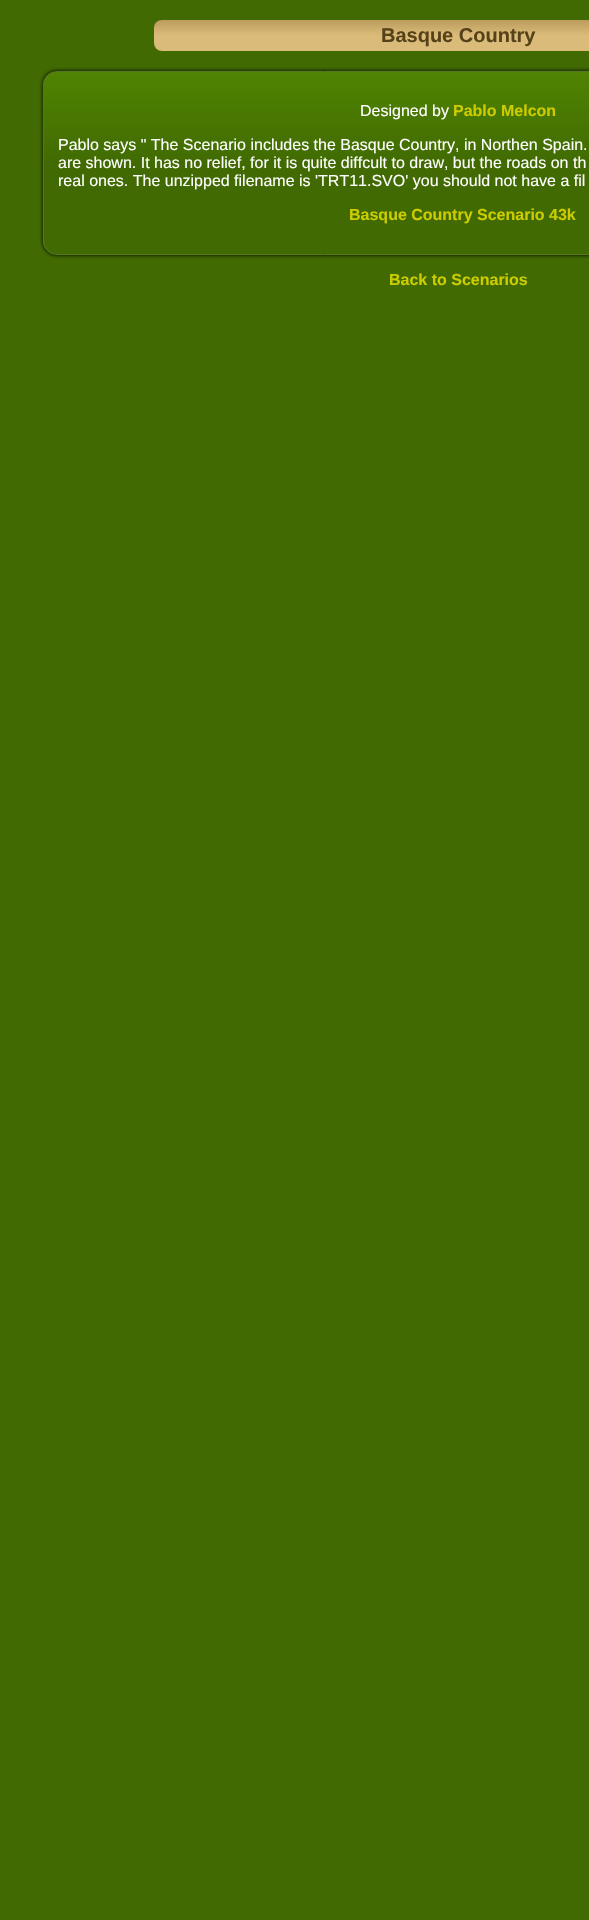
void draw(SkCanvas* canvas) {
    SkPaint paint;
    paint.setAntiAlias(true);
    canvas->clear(0xFF416B02);
    {
        const SkColor colors[] = {0xFFBC9C5C, 0xFFDBBB7A, 0xFFDBBB7A};
        const float stops[] = {0, 0.5f, 1};
        const SkPoint ends[] = {{458, 20}, {458, 51}};
        paint.setShader(SkGradientShader::MakeLinear(ends, colors, stops, 3, SkTileMode::kClamp));
        paint.setAlpha(255);
    }
    canvas->drawRoundRect(SkRect::MakeXYWH(154, 20, 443, 31), 8, 8, paint);
    SkFont font1(fontMgr->matchFamilyStyle("Liberation Sans", SkFontStyle::Bold()), 20);
    font1.setSubpixel(true);
    paint.setShader(nullptr);
    paint.setColor(0xFF564219);
    canvas->drawString("Basque Country", 381, 42, font1, paint);
    paint.setColor(0xFF000000);
    paint.setMaskFilter(SkMaskFilter::MakeBlur(kNormal_SkBlurStyle, 2));
    canvas->drawRoundRect(SkRect::MakeXYWH(43, 71, 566, 184), 14, 14, paint);
    paint.setMaskFilter(nullptr);
    canvas->save();
    canvas->clipPath(SkPathBuilder().moveTo(57, 71).lineTo(859, 71).cubicTo(866.5f, 71, 873, 77.5f, 873, 85).lineTo(873, 241).cubicTo(873, 248.5f, 866.5f, 255, 859, 255).lineTo(57, 255).cubicTo(49.5f, 255, 43, 248.5f, 43, 241).lineTo(43, 85).cubicTo(43, 77.5f, 49.5f, 71, 57, 71).close().detach(), true);
    {
        const SkColor colors[] = {0xFF508402, 0xFF416B02, 0xFF416B02};
        const float stops[] = {0, 0.5f, 1};
        const SkPoint ends[] = {{458, 72}, {458, 254}};
        paint.setShader(SkGradientShader::MakeLinear(ends, colors, stops, 3, SkTileMode::kClamp));
        paint.setAlpha(255);
    }
    canvas->drawRect(SkRect::MakeXYWH(43, 72, 546, 182), paint);
    canvas->restore();
    paint.setStyle(SkPaint::kStroke_Style);
    paint.setStrokeWidth(1);
    paint.setShader(nullptr);
    paint.setColor(0xFF557722);
    canvas->drawRoundRect(SkRect::MakeXYWH(43.5f, 71.5f, 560, 183), 13.5f, 13.5f, paint);
    SkFont font2(fontMgr->matchFamilyStyle("Liberation Sans", SkFontStyle::Normal()), 16);
    font2.setSubpixel(true);
    paint.setStyle(SkPaint::kFill_Style);
    paint.setColor(0xFFFFFFFF);
    canvas->drawString("Designed by", 360, 116, font2, paint);
    SkFont font3(fontMgr->matchFamilyStyle("Liberation Sans", SkFontStyle::Bold()), 16);
    font3.setSubpixel(true);
    paint.setColor(0xFFCCCC00);
    canvas->drawString("Pablo Melcon", 453, 116, font3, paint);
    paint.setColor(0xFFFFFFFF);
    canvas->drawString("Pablo says \" The Scenario includes the Basque Country, in Northen Spain.", 58, 150, font2, paint);
    canvas->drawString("are shown. It has no relief, for it is quite diffcult to draw, but the roads on th", 58, 168, font2, paint);
    canvas->drawString("real ones. The unzipped filename is 'TRT11.SVO' you should not have a fil", 58, 186, font2, paint);
    paint.setColor(0xFFCCCC00);
    canvas->drawString("Basque Country Scenario 43k", 349, 220, font3, paint);
    canvas->drawString("Back to Scenarios", 389, 285, font3, paint);
}
